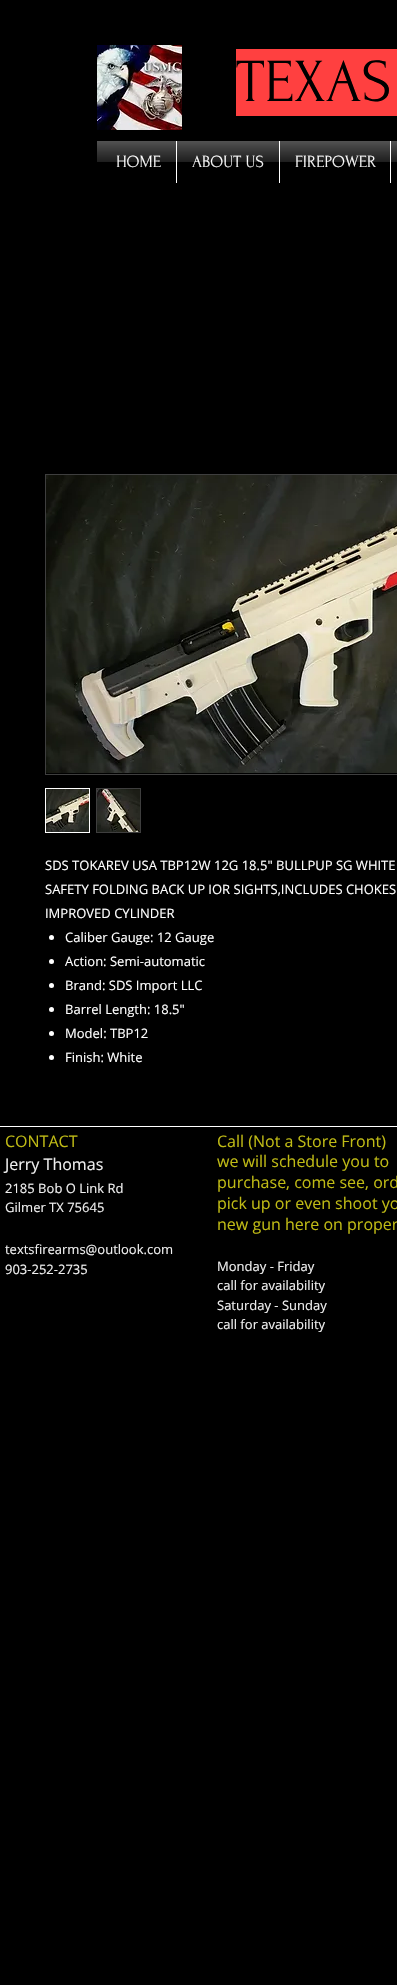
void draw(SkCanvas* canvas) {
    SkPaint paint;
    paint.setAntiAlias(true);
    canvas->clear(0xFF000000);
    canvas->drawImageRect(SkImages::DeferredFromEncodedData(SkData::MakeFromFileName("img1.png")), SkRect::MakeXYWH(97, 45, 85, 85), SkSamplingOptions());
    paint.setColor(0xFFFF4040);
    canvas->drawRect(SkRect::MakeXYWH(236, 49, 161, 67), paint);
    SkFont font1(fontMgr->matchFamilyStyle("Forum", SkFontStyle::Normal()), 61);
    font1.setSubpixel(true);
    paint.setColor(0xFF000000);
    canvas->drawString("TEXAS", 236, 101, font1, paint);
    canvas->drawImageRect(SkImages::DeferredFromEncodedData(SkData::MakeFromFileName("img2.png")), SkRect::MakeXYWH(97, 141, 4, 21), SkSamplingOptions());
    SkFont font2(fontMgr->matchFamilyStyle("Forum", SkFontStyle::Normal()), 17);
    font2.setSubpixel(true);
    paint.setColor(0xFFFFFFFF);
    canvas->drawString("HOME", 116, 167, font2, paint);
    canvas->drawImageRect(SkImages::DeferredFromEncodedData(SkData::MakeFromFileName("img3.png")), SkRect::MakeXYWH(101, 141, 75, 26), SkSamplingOptions());
    canvas->drawRect(SkRect::MakeXYWH(176, 141, 1, 42), paint);
    canvas->drawString("ABOUT US", 192, 167, font2, paint);
    canvas->drawImageRect(SkImages::DeferredFromEncodedData(SkData::MakeFromFileName("img4.png")), SkRect::MakeXYWH(177, 141, 102, 26), SkSamplingOptions());
    canvas->drawRect(SkRect::MakeXYWH(279, 141, 1, 42), paint);
    canvas->drawString("FIREPOWER", 295, 167, font2, paint);
    canvas->drawImageRect(SkImages::DeferredFromEncodedData(SkData::MakeFromFileName("img5.png")), SkRect::MakeXYWH(280, 141, 110, 26), SkSamplingOptions());
    canvas->drawRect(SkRect::MakeXYWH(390, 141, 1, 42), paint);
    canvas->drawImageRect(SkImages::DeferredFromEncodedData(SkData::MakeFromFileName("img6.png")), SkRect::MakeXYWH(391, 141, 6, 21), SkSamplingOptions());
    paint.setStyle(SkPaint::kStroke_Style);
    paint.setStrokeWidth(1);
    paint.setColor(0xFF3E3E3E);
    canvas->drawRect(SkRect::MakeXYWH(45.5f, 474.5f, 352, 300), paint);
    canvas->drawImageRect(SkImages::DeferredFromEncodedData(SkData::MakeFromFileName("img7.png")), SkRect::MakeXYWH(46, 475, 351, 298), SkSamplingOptions());
    paint.setColor(0xFFFFFFFF);
    canvas->drawRect(SkRect::MakeXYWH(45.5f, 788.5f, 44, 44), paint);
    canvas->drawImageRect(SkImages::DeferredFromEncodedData(SkData::MakeFromFileName("img8.png")), SkRect::MakeXYWH(46, 789, 43, 43), SkSamplingOptions());
    paint.setStyle(SkPaint::kFill_Style);
    paint.setColor(0xFF3E3E3E);
    canvas->drawRect(SkRect::MakeXYWH(96, 788, 45, 45), paint);
    canvas->drawImageRect(SkImages::DeferredFromEncodedData(SkData::MakeFromFileName("img9.png")), SkRect::MakeXYWH(97, 789, 43, 43), SkSamplingOptions());
    SkFont font3(fontMgr->matchFamilyStyle("Open Sans", SkFontStyle::Normal()), 13);
    font3.setSubpixel(true);
    paint.setColor(0xFFFFFFFF);
    canvas->drawString("SDS TOKAREV USA TBP12W 12G 18.5\" BULLPUP SG WHITE", 45, 870, font3, paint);
    canvas->drawString("SAFETY FOLDING BACK UP IOR SIGHTS,INCLUDES CHOKES", 45, 894, font3, paint);
    canvas->drawString("IMPROVED CYLINDER", 45, 918, font3, paint);
    canvas->drawCircle(51.5f, 937.5f, 2.5f, paint);
    canvas->drawString("Caliber Gauge: 12 Gauge", 65, 942, font3, paint);
    canvas->drawCircle(51.5f, 961.5f, 2.5f, paint);
    canvas->drawString("Action: Semi-automatic", 65, 966, font3, paint);
    canvas->drawCircle(51.5f, 985.5f, 2.5f, paint);
    canvas->drawString("Brand: SDS Import LLC", 65, 990, font3, paint);
    canvas->drawCircle(51.5f, 1009.5f, 2.5f, paint);
    canvas->drawString("Barrel Length: 18.5\"", 65, 1014, font3, paint);
    canvas->drawCircle(51.5f, 1033.5f, 2.5f, paint);
    canvas->drawString("Model: TBP12", 65, 1038, font3, paint);
    canvas->drawCircle(51.5f, 1057.5f, 2.5f, paint);
    canvas->drawString("Finish: White", 65, 1062, font3, paint);
    canvas->drawRect(SkRect::MakeXYWH(0, 1126, 397, 1), paint);
    SkFont font4(fontMgr->matchFamilyStyle("Open Sans", SkFontStyle::Normal()), 16);
    font4.setSubpixel(true);
    paint.setColor(0xFFBFBA15);
    canvas->drawString("CONTACT", 5, 1147, font4, paint);
    paint.setColor(0xFFEFEFEF);
    canvas->drawString("Jerry Thomas", 5, 1170, font4, paint);
    canvas->drawString("2185 Bob O Link Rd", 5, 1193, font3, paint);
    canvas->drawString("Gilmer TX 75645", 5, 1212, font3, paint);
    canvas->drawString("textsfirearms@outlook.com", 5, 1254, font3, paint);
    canvas->drawString("903-252-2735", 5, 1274, font3, paint);
    paint.setColor(0xFFBFBA15);
    canvas->drawString("Call (Not a Store Front)", 217, 1147, font4, paint);
    canvas->drawString("we will schedule you to", 217, 1167, font4, paint);
    canvas->drawString("purchase, come see, ord", 217, 1188, font4, paint);
    canvas->drawString("pick up or even shoot yo", 217, 1209, font4, paint);
    canvas->drawString("new gun here on proper", 217, 1230, font4, paint);
    paint.setColor(0xFFEFEFEF);
    canvas->drawString("Monday - Friday", 217, 1271, font3, paint);
    canvas->drawString("call for availability", 217, 1290, font3, paint);
    canvas->drawString("Saturday - Sunday", 217, 1310, font3, paint);
    canvas->drawString("call for availability", 217, 1329, font3, paint);
}
